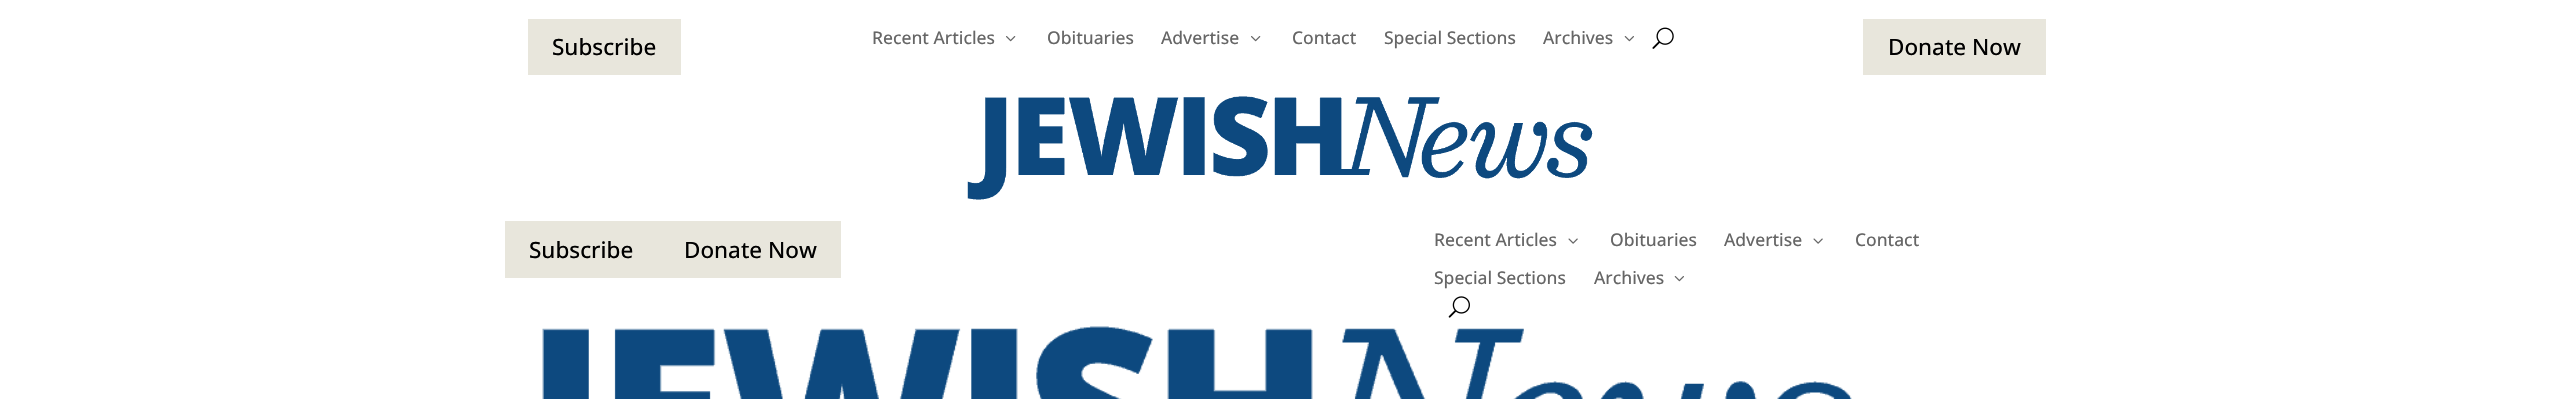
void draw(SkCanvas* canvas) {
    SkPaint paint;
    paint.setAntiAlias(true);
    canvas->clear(0xFFFFFFFF);
    paint.setColor(0xFFE8E6DC);
    canvas->drawRect(SkRect::MakeXYWH(528, 19, 153, 56), paint);
    SkFont font1(fontMgr->matchFamilyStyle("Open Sans", SkFontStyle(500, SkFontStyle::kNormal_Width, SkFontStyle::kUpright_Slant)), 22.5f);
    font1.setSubpixel(true);
    paint.setColor(0xFF000000);
    canvas->drawString("Subscribe", 552, 55, font1, paint);
    SkFont font2(fontMgr->matchFamilyStyle("Open Sans", SkFontStyle(500, SkFontStyle::kNormal_Width, SkFontStyle::kUpright_Slant)), 17.5f);
    font2.setSubpixel(true);
    paint.setColor(0xFF666666);
    canvas->drawString("Recent Articles", 872, 44, font2, paint);
    canvas->drawImageRect(SkImages::DeferredFromEncodedData(SkData::MakeFromFileName("img1.png")), SkRect::MakeXYWH(1006, 36, 10, 6), SkSamplingOptions());
    canvas->drawString("Obituaries", 1047, 44, font2, paint);
    canvas->drawString("Advertise", 1161, 44, font2, paint);
    canvas->drawImageRect(SkImages::DeferredFromEncodedData(SkData::MakeFromFileName("img1.png")), SkRect::MakeXYWH(1251, 36, 10, 6), SkSamplingOptions());
    canvas->drawString("Contact", 1292, 44, font2, paint);
    canvas->drawString("Special Sections", 1384, 44, font2, paint);
    canvas->drawString("Archives", 1543, 44, font2, paint);
    canvas->drawImageRect(SkImages::DeferredFromEncodedData(SkData::MakeFromFileName("img2.png")), SkRect::MakeXYWH(1624, 36, 10, 6), SkSamplingOptions());
    canvas->drawImageRect(SkImages::DeferredFromEncodedData(SkData::MakeFromFileName("img3.png")), SkRect::MakeXYWH(1652, 27, 22, 22), SkSamplingOptions());
    paint.setColor(0xFFE8E6DC);
    canvas->drawRect(SkRect::MakeXYWH(1863, 19, 183, 56), paint);
    paint.setColor(0xFF000000);
    canvas->drawString("Donate Now", 1888, 55, font1, paint);
    canvas->drawImageRect(SkImages::DeferredFromEncodedData(SkData::MakeFromFileName("img4.png")), SkRect::MakeXYWH(967, 96, 626, 104), SkSamplingOptions());
    paint.setColor(0xFFE8E6DC);
    canvas->drawRect(SkRect::MakeXYWH(505, 221, 336, 57), paint);
    paint.setColor(0xFF000000);
    canvas->drawString("Subscribe", 529, 258, font1, paint);
    canvas->drawString("Donate Now", 684, 258, font1, paint);
    paint.setColor(0xFF666666);
    canvas->drawString("Recent Articles", 1434, 246, font2, paint);
    canvas->drawImageRect(SkImages::DeferredFromEncodedData(SkData::MakeFromFileName("img5.png")), SkRect::MakeXYWH(1568, 238, 10, 6), SkSamplingOptions());
    canvas->drawString("Obituaries", 1610, 246, font2, paint);
    canvas->drawString("Advertise", 1724, 246, font2, paint);
    canvas->drawImageRect(SkImages::DeferredFromEncodedData(SkData::MakeFromFileName("img5.png")), SkRect::MakeXYWH(1813, 238, 10, 6), SkSamplingOptions());
    canvas->drawString("Contact", 1855, 246, font2, paint);
    canvas->drawString("Special Sections", 1434, 284, font2, paint);
    canvas->drawString("Archives", 1594, 284, font2, paint);
    canvas->drawImageRect(SkImages::DeferredFromEncodedData(SkData::MakeFromFileName("img2.png")), SkRect::MakeXYWH(1674, 276, 10, 6), SkSamplingOptions());
    canvas->drawImageRect(SkImages::DeferredFromEncodedData(SkData::MakeFromFileName("img6.png")), SkRect::MakeXYWH(1448, 296, 22, 22), SkSamplingOptions());
    canvas->drawImageRect(SkImages::DeferredFromEncodedData(SkData::MakeFromFileName("img7.png")), SkRect::MakeXYWH(542, 326, 1310, 73), SkSamplingOptions());
}
